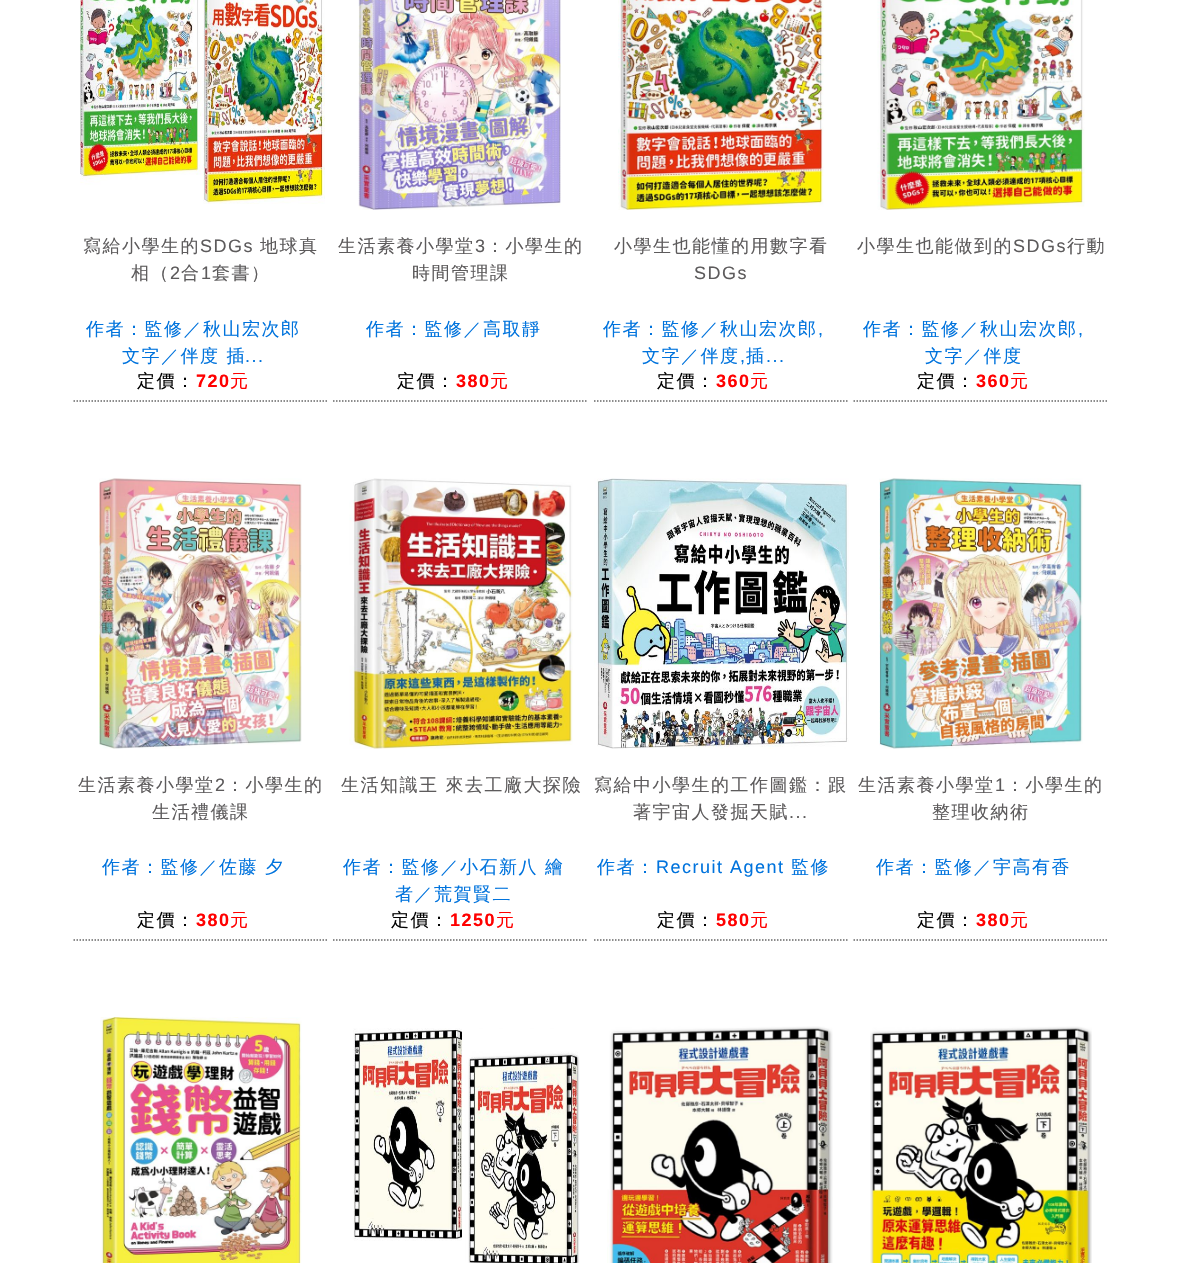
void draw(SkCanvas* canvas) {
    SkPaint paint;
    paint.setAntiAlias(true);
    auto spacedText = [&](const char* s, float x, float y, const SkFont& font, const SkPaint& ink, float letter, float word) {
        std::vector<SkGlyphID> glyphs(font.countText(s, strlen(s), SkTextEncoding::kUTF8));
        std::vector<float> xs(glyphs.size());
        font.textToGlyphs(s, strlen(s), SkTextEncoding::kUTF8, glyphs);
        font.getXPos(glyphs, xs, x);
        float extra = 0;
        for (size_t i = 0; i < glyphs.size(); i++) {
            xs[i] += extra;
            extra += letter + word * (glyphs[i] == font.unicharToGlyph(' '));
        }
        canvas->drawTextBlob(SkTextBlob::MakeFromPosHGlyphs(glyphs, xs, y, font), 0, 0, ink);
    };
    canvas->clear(0xFFFFFFFF);
    paint.setStyle(SkPaint::kStroke_Style);
    paint.setStrokeWidth(1.5f);
    paint.setColor(0xFF666666);
    paint.setPathEffect(SkDashPathEffect::Make({{1.5f, 1.5f}}, 0));
    canvas->drawPath(SkPathBuilder().moveTo(73.5f, 401).lineTo(328.5f, 401).detach(), paint);
    paint.setPathEffect(nullptr);
    canvas->drawImageRect(SkImages::DeferredFromEncodedData(SkData::MakeFromFileName("img1.png")), SkRect::MakeXYWH(80, 0, 245, 204), SkSamplingOptions());
    SkFont font1(fontMgr->matchFamilyStyle("WenQuanYi Zen Hei", SkFontStyle(500, SkFontStyle::kNormal_Width, SkFontStyle::kUpright_Slant)), 18);
    font1.setSubpixel(true);
    paint.setStyle(SkPaint::kFill_Style);
    paint.setColor(0xFF5D5B5C);
    spacedText("寫給小學生的", 83, 252, font1, paint, 1.5f, 0);
    SkFont font2(fontMgr->matchFamilyStyle("Liberation Sans", SkFontStyle::Normal()), 18);
    font2.setSubpixel(true);
    spacedText("SDGs", 200, 252, font2, paint, 1.5f, 0);
    spacedText("地球真", 260, 252, font1, paint, 1.5f, 0);
    spacedText("相（", 131, 279, font1, paint, 1.5f, 0);
    spacedText("2", 170, 279, font2, paint, 1.5f, 0);
    spacedText("合", 181, 279, font1, paint, 1.5f, 0);
    spacedText("1", 201, 279, font2, paint, 1.5f, 0);
    spacedText("套書）", 212, 279, font1, paint, 1.5f, 0);
    paint.setColor(0xFF0073DD);
    spacedText("作者：監修／秋山宏次郎", 86, 335, font1, paint, 1.5f, 0);
    spacedText("文字／伴度 插", 122, 362, font1, paint, 1.5f, 0);
    spacedText("...", 245, 362, font2, paint, 1.5f, 0);
    paint.setColor(0xFF020202);
    spacedText("定價：", 137, 387, font1, paint, 1.5f, 0);
    SkFont font3(fontMgr->matchFamilyStyle("Liberation Sans", SkFontStyle::Bold()), 18);
    font3.setSubpixel(true);
    paint.setColor(0xFFFF0000);
    spacedText("720", 196, 387, font3, paint, 1.5f, 0);
    spacedText("元", 230, 387, font1, paint, 1.5f, 0);
    paint.setStyle(SkPaint::kStroke_Style);
    paint.setColor(0xFF666666);
    paint.setPathEffect(SkDashPathEffect::Make({{1.5f, 1.5f}}, 0));
    canvas->drawPath(SkPathBuilder().moveTo(333, 401).lineTo(588, 401).detach(), paint);
    paint.setPathEffect(nullptr);
    canvas->drawImageRect(SkImages::DeferredFromEncodedData(SkData::MakeFromFileName("img2.png")), SkRect::MakeXYWH(358, 0, 203, 210), SkSamplingOptions());
    paint.setStyle(SkPaint::kFill_Style);
    paint.setColor(0xFF5D5B5C);
    spacedText("生活素養小學堂", 338, 252, font1, paint, 1.5f, 0);
    spacedText("3", 475, 252, font2, paint, 1.5f, 0);
    spacedText("：小學生的", 486, 252, font1, paint, 1.5f, 0);
    spacedText("時間管理課", 412, 279, font1, paint, 1.5f, 0);
    paint.setColor(0xFF0073DD);
    spacedText("作者：監修／高取靜", 366, 335, font1, paint, 1.5f, 0);
    paint.setColor(0xFF020202);
    spacedText("定價：", 397, 387, font1, paint, 1.5f, 0);
    paint.setColor(0xFFFF0000);
    spacedText("380", 456, 387, font3, paint, 1.5f, 0);
    spacedText("元", 490, 387, font1, paint, 1.5f, 0);
    paint.setStyle(SkPaint::kStroke_Style);
    paint.setColor(0xFF666666);
    paint.setPathEffect(SkDashPathEffect::Make({{1.5f, 1.5f}}, 0));
    canvas->drawPath(SkPathBuilder().moveTo(594, 401).lineTo(849, 401).detach(), paint);
    paint.setPathEffect(nullptr);
    canvas->drawImageRect(SkImages::DeferredFromEncodedData(SkData::MakeFromFileName("img3.png")), SkRect::MakeXYWH(618, 0, 206, 210), SkSamplingOptions());
    paint.setStyle(SkPaint::kFill_Style);
    paint.setColor(0xFF5D5B5C);
    spacedText("小學生也能懂的用數字看", 614, 252, font1, paint, 1.5f, 0);
    spacedText("SDGs", 694, 279, font2, paint, 1.5f, 0);
    paint.setColor(0xFF0073DD);
    spacedText("作者：監修／秋山宏次郎", 603, 335, font1, paint, 1.5f, 0);
    spacedText(",", 818, 335, font2, paint, 1.5f, 0);
    spacedText("文字／伴度", 642, 362, font1, paint, 1.5f, 0);
    spacedText(",", 740, 362, font2, paint, 1.5f, 0);
    spacedText("插", 746, 362, font1, paint, 1.5f, 0);
    spacedText("...", 766, 362, font2, paint, 1.5f, 0);
    paint.setColor(0xFF020202);
    spacedText("定價：", 657, 387, font1, paint, 1.5f, 0);
    paint.setColor(0xFFFF0000);
    spacedText("360", 716, 387, font3, paint, 1.5f, 0);
    spacedText("元", 750, 387, font1, paint, 1.5f, 0);
    paint.setStyle(SkPaint::kStroke_Style);
    paint.setColor(0xFF666666);
    paint.setPathEffect(SkDashPathEffect::Make({{1.5f, 1.5f}}, 0));
    canvas->drawPath(SkPathBuilder().moveTo(853.5f, 401).lineTo(1108.5f, 401).detach(), paint);
    paint.setPathEffect(nullptr);
    canvas->drawImageRect(SkImages::DeferredFromEncodedData(SkData::MakeFromFileName("img4.png")), SkRect::MakeXYWH(877, 0, 208, 210), SkSamplingOptions());
    paint.setStyle(SkPaint::kFill_Style);
    paint.setColor(0xFF5D5B5C);
    spacedText("小學生也能做到的", 857, 252, font1, paint, 1.5f, 0);
    spacedText("SDGs", 1013, 252, font2, paint, 1.5f, 0);
    spacedText("行動", 1067, 252, font1, paint, 1.5f, 0);
    paint.setColor(0xFF0073DD);
    spacedText("作者：監修／秋山宏次郎", 863, 335, font1, paint, 1.5f, 0);
    spacedText(",", 1078, 335, font2, paint, 1.5f, 0);
    spacedText("文字／伴度", 925, 362, font1, paint, 1.5f, 0);
    paint.setColor(0xFF020202);
    spacedText("定價：", 917, 387, font1, paint, 1.5f, 0);
    paint.setColor(0xFFFF0000);
    spacedText("360", 976, 387, font3, paint, 1.5f, 0);
    spacedText("元", 1010, 387, font1, paint, 1.5f, 0);
    paint.setStyle(SkPaint::kStroke_Style);
    paint.setColor(0xFF666666);
    paint.setPathEffect(SkDashPathEffect::Make({{1.5f, 1.5f}}, 0));
    canvas->drawPath(SkPathBuilder().moveTo(73.5f, 940).lineTo(328.5f, 940).detach(), paint);
    paint.setPathEffect(nullptr);
    canvas->drawImageRect(SkImages::DeferredFromEncodedData(SkData::MakeFromFileName("img5.png")), SkRect::MakeXYWH(99, 478, 203, 271), SkSamplingOptions());
    paint.setStyle(SkPaint::kFill_Style);
    paint.setColor(0xFF5D5B5C);
    spacedText("生活素養小學堂", 78, 791, font1, paint, 1.5f, 0);
    spacedText("2", 215, 791, font2, paint, 1.5f, 0);
    spacedText("：小學生的", 226, 791, font1, paint, 1.5f, 0);
    spacedText("生活禮儀課", 152, 818, font1, paint, 1.5f, 0);
    paint.setColor(0xFF0073DD);
    spacedText("作者：監修／佐藤 夕", 102, 873, font1, paint, 1.5f, 0);
    paint.setColor(0xFF020202);
    spacedText("定價：", 137, 926, font1, paint, 1.5f, 0);
    paint.setColor(0xFFFF0000);
    spacedText("380", 196, 926, font3, paint, 1.5f, 0);
    spacedText("元", 230, 926, font1, paint, 1.5f, 0);
    paint.setStyle(SkPaint::kStroke_Style);
    paint.setColor(0xFF666666);
    paint.setPathEffect(SkDashPathEffect::Make({{1.5f, 1.5f}}, 0));
    canvas->drawPath(SkPathBuilder().moveTo(333, 940).lineTo(588, 940).detach(), paint);
    paint.setPathEffect(nullptr);
    canvas->drawImageRect(SkImages::DeferredFromEncodedData(SkData::MakeFromFileName("img6.png")), SkRect::MakeXYWH(349, 478, 224, 271), SkSamplingOptions());
    paint.setStyle(SkPaint::kFill_Style);
    paint.setColor(0xFF5D5B5C);
    spacedText("生活知識王 來去工廠大探險", 341, 791, font1, paint, 1.5f, 0);
    paint.setColor(0xFF0073DD);
    spacedText("作者：監修／小石新八 繪", 343, 873, font1, paint, 1.5f, 0);
    spacedText("者／荒賀賢二", 395, 900, font1, paint, 1.5f, 0);
    paint.setColor(0xFF020202);
    spacedText("定價：", 391, 926, font1, paint, 1.5f, 0);
    paint.setColor(0xFFFF0000);
    spacedText("1250", 450, 926, font3, paint, 1.5f, 0);
    spacedText("元", 496, 926, font1, paint, 1.5f, 0);
    paint.setStyle(SkPaint::kStroke_Style);
    paint.setColor(0xFF666666);
    paint.setPathEffect(SkDashPathEffect::Make({{1.5f, 1.5f}}, 0));
    canvas->drawPath(SkPathBuilder().moveTo(594, 940).lineTo(849, 940).detach(), paint);
    paint.setPathEffect(nullptr);
    canvas->drawImageRect(SkImages::DeferredFromEncodedData(SkData::MakeFromFileName("img7.png")), SkRect::MakeXYWH(594, 478, 255, 271), SkSamplingOptions());
    paint.setStyle(SkPaint::kFill_Style);
    paint.setColor(0xFF5D5B5C);
    spacedText("寫給中小學生的工作圖鑑：跟", 594, 791, font1, paint, 1.5f, 0);
    spacedText("著宇宙人發掘天賦", 633, 818, font1, paint, 1.5f, 0);
    spacedText("...", 789, 818, font2, paint, 1.5f, 0);
    paint.setColor(0xFF0073DD);
    spacedText("作者：", 597, 873, font1, paint, 1.5f, 0);
    spacedText("Recruit Agent", 656, 873, font2, paint, 1.5f, 0);
    spacedText("監修", 791, 873, font1, paint, 1.5f, 0);
    paint.setColor(0xFF020202);
    spacedText("定價：", 657, 926, font1, paint, 1.5f, 0);
    paint.setColor(0xFFFF0000);
    spacedText("580", 716, 926, font3, paint, 1.5f, 0);
    spacedText("元", 750, 926, font1, paint, 1.5f, 0);
    paint.setStyle(SkPaint::kStroke_Style);
    paint.setColor(0xFF666666);
    paint.setPathEffect(SkDashPathEffect::Make({{1.5f, 1.5f}}, 0));
    canvas->drawPath(SkPathBuilder().moveTo(853.5f, 940).lineTo(1108.5f, 940).detach(), paint);
    paint.setPathEffect(nullptr);
    canvas->drawImageRect(SkImages::DeferredFromEncodedData(SkData::MakeFromFileName("img8.png")), SkRect::MakeXYWH(879, 478, 204, 271), SkSamplingOptions());
    paint.setStyle(SkPaint::kFill_Style);
    paint.setColor(0xFF5D5B5C);
    spacedText("生活素養小學堂", 858, 791, font1, paint, 1.5f, 0);
    spacedText("1", 995, 791, font2, paint, 1.5f, 0);
    spacedText("：小學生的", 1006, 791, font1, paint, 1.5f, 0);
    spacedText("整理收納術", 932, 818, font1, paint, 1.5f, 0);
    paint.setColor(0xFF0073DD);
    spacedText("作者：監修／宇高有香", 876, 873, font1, paint, 1.5f, 0);
    paint.setColor(0xFF020202);
    spacedText("定價：", 917, 926, font1, paint, 1.5f, 0);
    paint.setColor(0xFFFF0000);
    spacedText("380", 976, 926, font3, paint, 1.5f, 0);
    spacedText("元", 1010, 926, font1, paint, 1.5f, 0);
    canvas->drawImageRect(SkImages::DeferredFromEncodedData(SkData::MakeFromFileName("img9.png")), SkRect::MakeXYWH(100, 1017, 202, 246), SkSamplingOptions());
    canvas->drawImageRect(SkImages::DeferredFromEncodedData(SkData::MakeFromFileName("img10.png")), SkRect::MakeXYWH(353, 1028, 227, 235), SkSamplingOptions());
    canvas->drawImageRect(SkImages::DeferredFromEncodedData(SkData::MakeFromFileName("img11.png")), SkRect::MakeXYWH(607, 1026, 226, 237), SkSamplingOptions());
    canvas->drawImageRect(SkImages::DeferredFromEncodedData(SkData::MakeFromFileName("img12.png")), SkRect::MakeXYWH(870, 1026, 222, 237), SkSamplingOptions());
}
